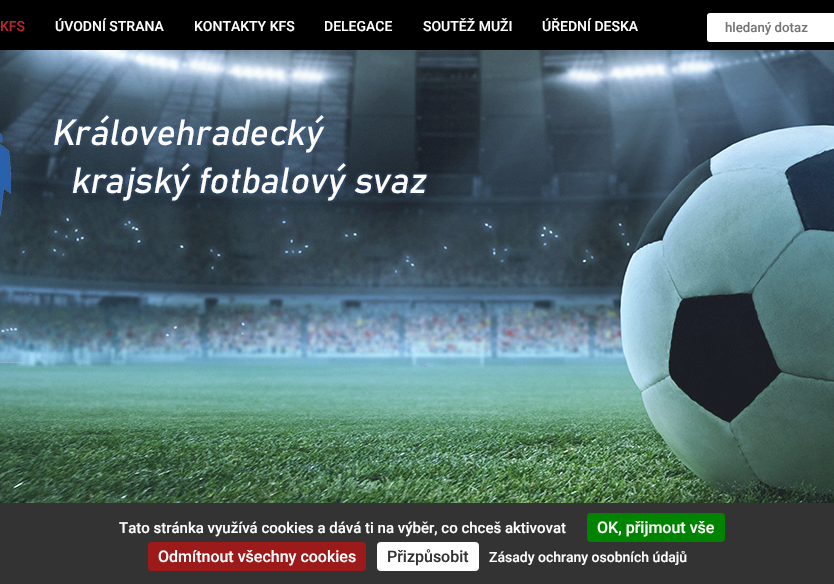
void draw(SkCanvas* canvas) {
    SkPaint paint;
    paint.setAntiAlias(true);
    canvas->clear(0xFFFFFFFF);
    paint.setColor(0xFF000000);
    canvas->drawRect(SkRect::MakeXYWH(0, 0, 834, 50), paint);
    SkFont font1(fontMgr->matchFamilyStyle("Roboto", SkFontStyle(500, SkFontStyle::kNormal_Width, SkFontStyle::kUpright_Slant)), 14);
    font1.setSubpixel(true);
    paint.setColor(0xFFBB242D);
    canvas->drawString("KFS", 0, 31, font1, paint);
    paint.setColor(0xFFFFFFFF);
    canvas->drawString("ÚVODNÍ STRANA", 55, 31, font1, paint);
    canvas->drawString("KONTAKTY KFS", 194, 31, font1, paint);
    canvas->drawString("DELEGACE", 324, 31, font1, paint);
    canvas->drawString("SOUTĚŽ MUŽI", 423, 31, font1, paint);
    canvas->drawString("ÚŘEDNÍ DESKA", 542, 31, font1, paint);
    canvas->drawRoundRect(SkRect::MakeXYWH(707, 13, 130, 29), 3, 3, paint);
    SkFont font2(fontMgr->matchFamilyStyle("Roboto", SkFontStyle(500, SkFontStyle::kNormal_Width, SkFontStyle::kUpright_Slant)), 13.25f);
    font2.setSubpixel(true);
    paint.setColor(0xFF757575);
    canvas->drawString("hledaný dotaz", 725, 32, font2, paint);
    canvas->drawImageRect(SkImages::DeferredFromEncodedData(SkData::MakeFromFileName("img1.png")), SkRect::MakeXYWH(0, 50, 834, 453), SkSamplingOptions());
    paint.setColor(0xFF333333);
    canvas->drawRect(SkRect::MakeXYWH(0, 503, 834, 81), paint);
    SkFont font3(fontMgr->matchFamilyStyle("Roboto", SkFontStyle(500, SkFontStyle::kNormal_Width, SkFontStyle::kUpright_Slant)), 15);
    font3.setSubpixel(true);
    paint.setColor(0xFFFFFFFF);
    canvas->drawString("Tato stránka využívá cookies a dává ti na výběr, co chceš aktivovat", 119, 533, font3, paint);
    paint.setColor(0xFF008300);
    canvas->drawRoundRect(SkRect::MakeXYWH(587, 513, 138, 29), 4, 4, paint);
    SkFont font4(fontMgr->matchFamilyStyle("Roboto", SkFontStyle(500, SkFontStyle::kNormal_Width, SkFontStyle::kUpright_Slant)), 16);
    font4.setSubpixel(true);
    paint.setColor(0xFFFFFFFF);
    canvas->drawString("OK, přijmout vše", 597, 533, font4, paint);
    paint.setColor(0xFF9C1A1A);
    canvas->drawRoundRect(SkRect::MakeXYWH(148, 542, 218, 29), 4, 4, paint);
    paint.setColor(0xFFFFFFFF);
    canvas->drawString("Odmítnout všechny cookies", 158, 562, font4, paint);
    canvas->drawRoundRect(SkRect::MakeXYWH(377, 542, 102, 29), 4, 4, paint);
    paint.setColor(0xFF333333);
    canvas->drawString("Přizpůsobit", 387, 562, font4, paint);
    paint.setColor(0xFFFFFFFF);
    canvas->drawString("Zásady ochrany osobních údajů", 489, 562, font1, paint);
}
